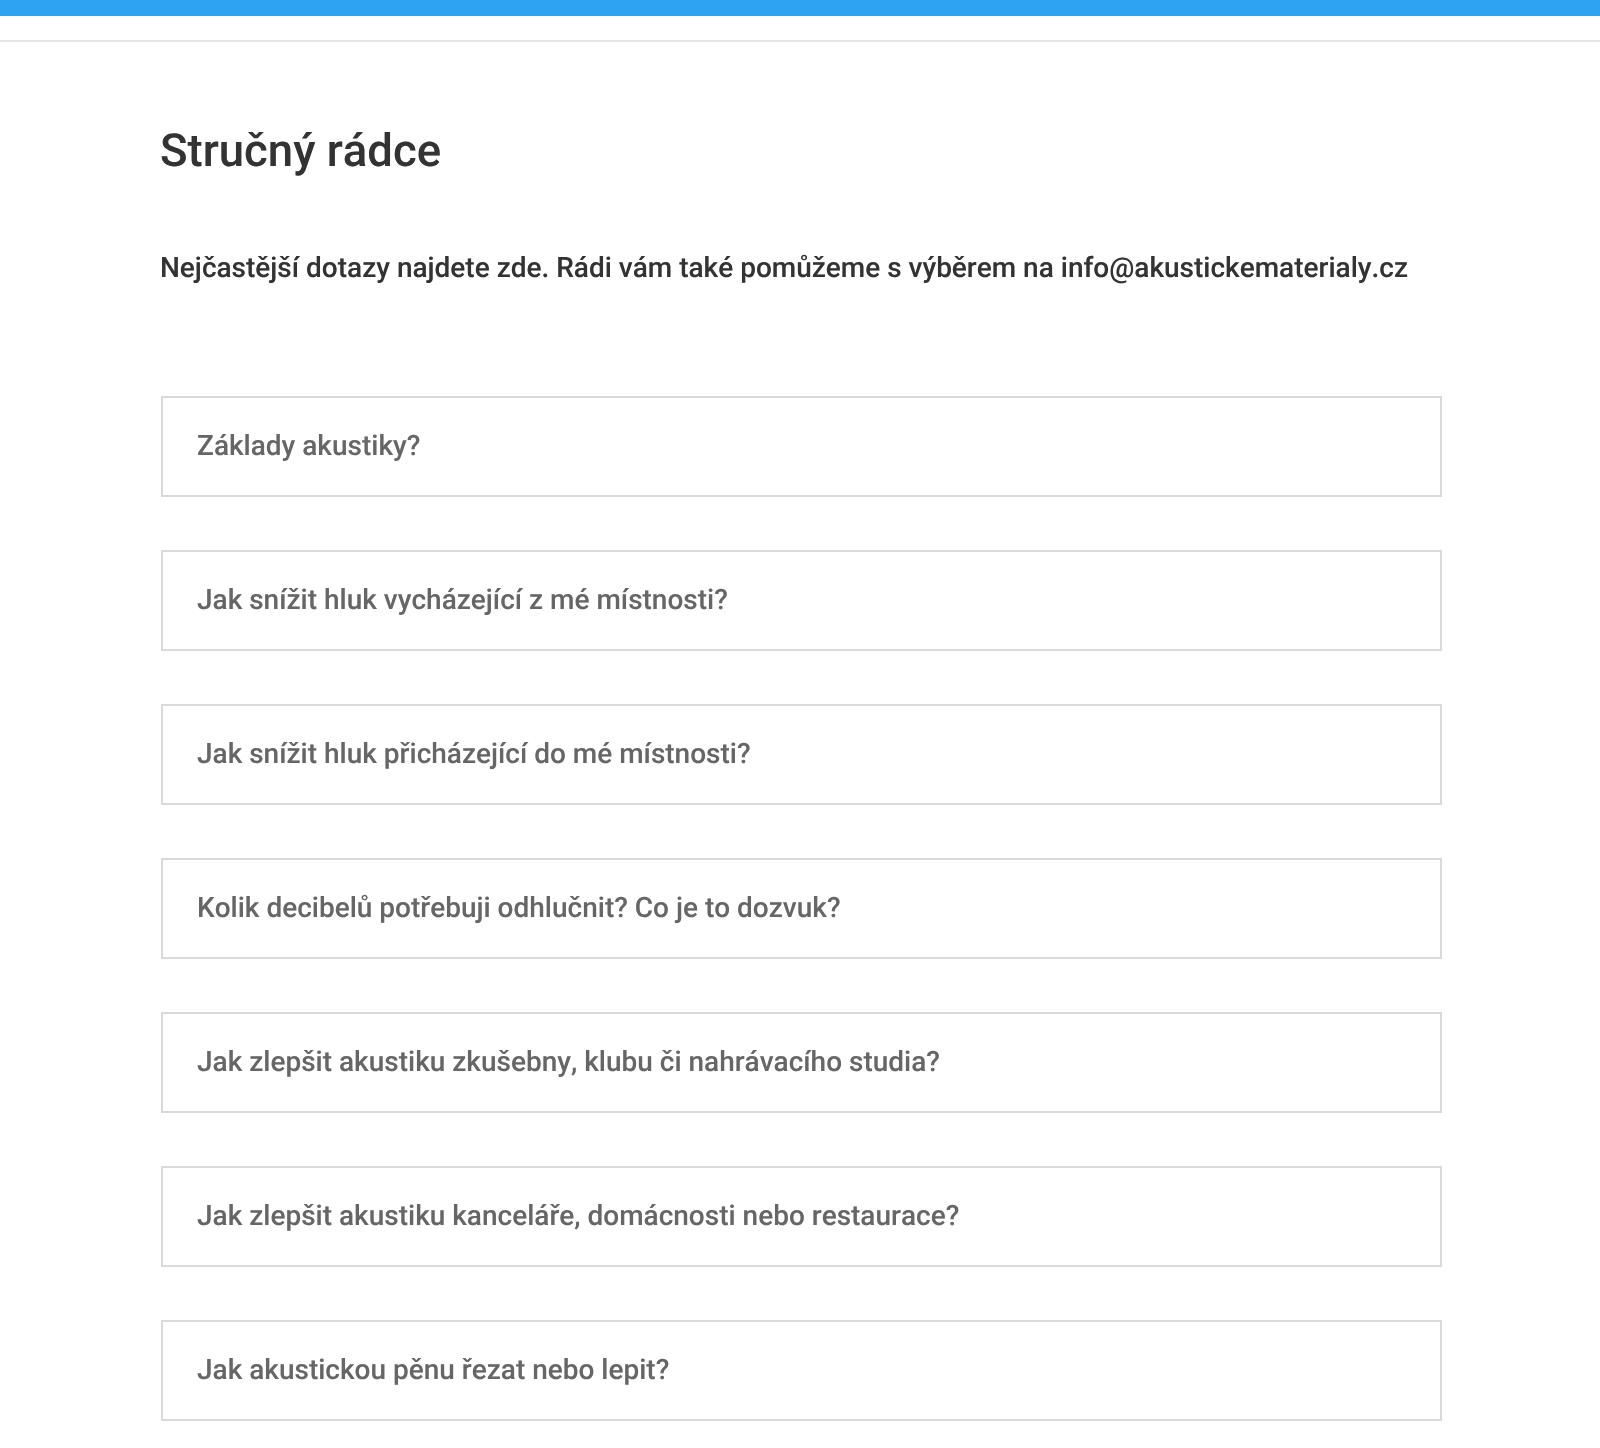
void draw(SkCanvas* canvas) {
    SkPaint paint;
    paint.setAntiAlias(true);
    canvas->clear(0xFFFFFFFF);
    paint.setColor(0xFF2EA3F2);
    canvas->drawRect(SkRect::MakeXYWH(0, 0, 1600, 16), paint);
    paint.setColor(0xFFE6E6E6);
    canvas->drawRect(SkRect::MakeXYWH(0, 40, 1600, 2), paint);
    SkFont font1(fontMgr->matchFamilyStyle("Roboto", SkFontStyle(500, SkFontStyle::kNormal_Width, SkFontStyle::kUpright_Slant)), 45.5f);
    font1.setSubpixel(true);
    paint.setColor(0xFF333333);
    canvas->drawString("Stručný rádce", 160, 166, font1, paint);
    SkFont font2(fontMgr->matchFamilyStyle("Roboto", SkFontStyle(500, SkFontStyle::kNormal_Width, SkFontStyle::kUpright_Slant)), 28);
    font2.setSubpixel(true);
    canvas->drawString("Nejčastější dotazy najdete zde. Rádi vám také pomůžeme s výběrem na info@akustickematerialy.cz", 160, 277, font2, paint);
    paint.setStyle(SkPaint::kStroke_Style);
    paint.setStrokeWidth(2);
    paint.setColor(0xFFD9D9D9);
    canvas->drawRect(SkRect::MakeXYWH(162, 397, 1279, 99), paint);
    paint.setStyle(SkPaint::kFill_Style);
    paint.setColor(0xFF666666);
    canvas->drawString("Základy akustiky?", 197, 455, font2, paint);
    paint.setStyle(SkPaint::kStroke_Style);
    paint.setColor(0xFFD9D9D9);
    canvas->drawRect(SkRect::MakeXYWH(162, 551, 1279, 99), paint);
    paint.setStyle(SkPaint::kFill_Style);
    paint.setColor(0xFF666666);
    canvas->drawString("Jak snížit hluk vycházející z mé místnosti?", 197, 609, font2, paint);
    paint.setStyle(SkPaint::kStroke_Style);
    paint.setColor(0xFFD9D9D9);
    canvas->drawRect(SkRect::MakeXYWH(162, 705, 1279, 99), paint);
    paint.setStyle(SkPaint::kFill_Style);
    paint.setColor(0xFF666666);
    canvas->drawString("Jak snížit hluk přicházející do mé místnosti?", 197, 763, font2, paint);
    paint.setStyle(SkPaint::kStroke_Style);
    paint.setColor(0xFFD9D9D9);
    canvas->drawRect(SkRect::MakeXYWH(162, 859, 1279, 99), paint);
    paint.setStyle(SkPaint::kFill_Style);
    paint.setColor(0xFF666666);
    canvas->drawString("Kolik decibelů potřebuji odhlučnit? Co je to dozvuk?", 197, 917, font2, paint);
    paint.setStyle(SkPaint::kStroke_Style);
    paint.setColor(0xFFD9D9D9);
    canvas->drawRect(SkRect::MakeXYWH(162, 1013, 1279, 99), paint);
    paint.setStyle(SkPaint::kFill_Style);
    paint.setColor(0xFF666666);
    canvas->drawString("Jak zlepšit akustiku zkušebny, klubu či nahrávacího studia?", 197, 1071, font2, paint);
    paint.setStyle(SkPaint::kStroke_Style);
    paint.setColor(0xFFD9D9D9);
    canvas->drawRect(SkRect::MakeXYWH(162, 1167, 1279, 99), paint);
    paint.setStyle(SkPaint::kFill_Style);
    paint.setColor(0xFF666666);
    canvas->drawString("Jak zlepšit akustiku kanceláře, domácnosti nebo restaurace?", 197, 1225, font2, paint);
    paint.setStyle(SkPaint::kStroke_Style);
    paint.setColor(0xFFD9D9D9);
    canvas->drawRect(SkRect::MakeXYWH(162, 1321, 1279, 99), paint);
    paint.setStyle(SkPaint::kFill_Style);
    paint.setColor(0xFF666666);
    canvas->drawString("Jak akustickou pěnu řezat nebo lepit?", 197, 1379, font2, paint);
}
